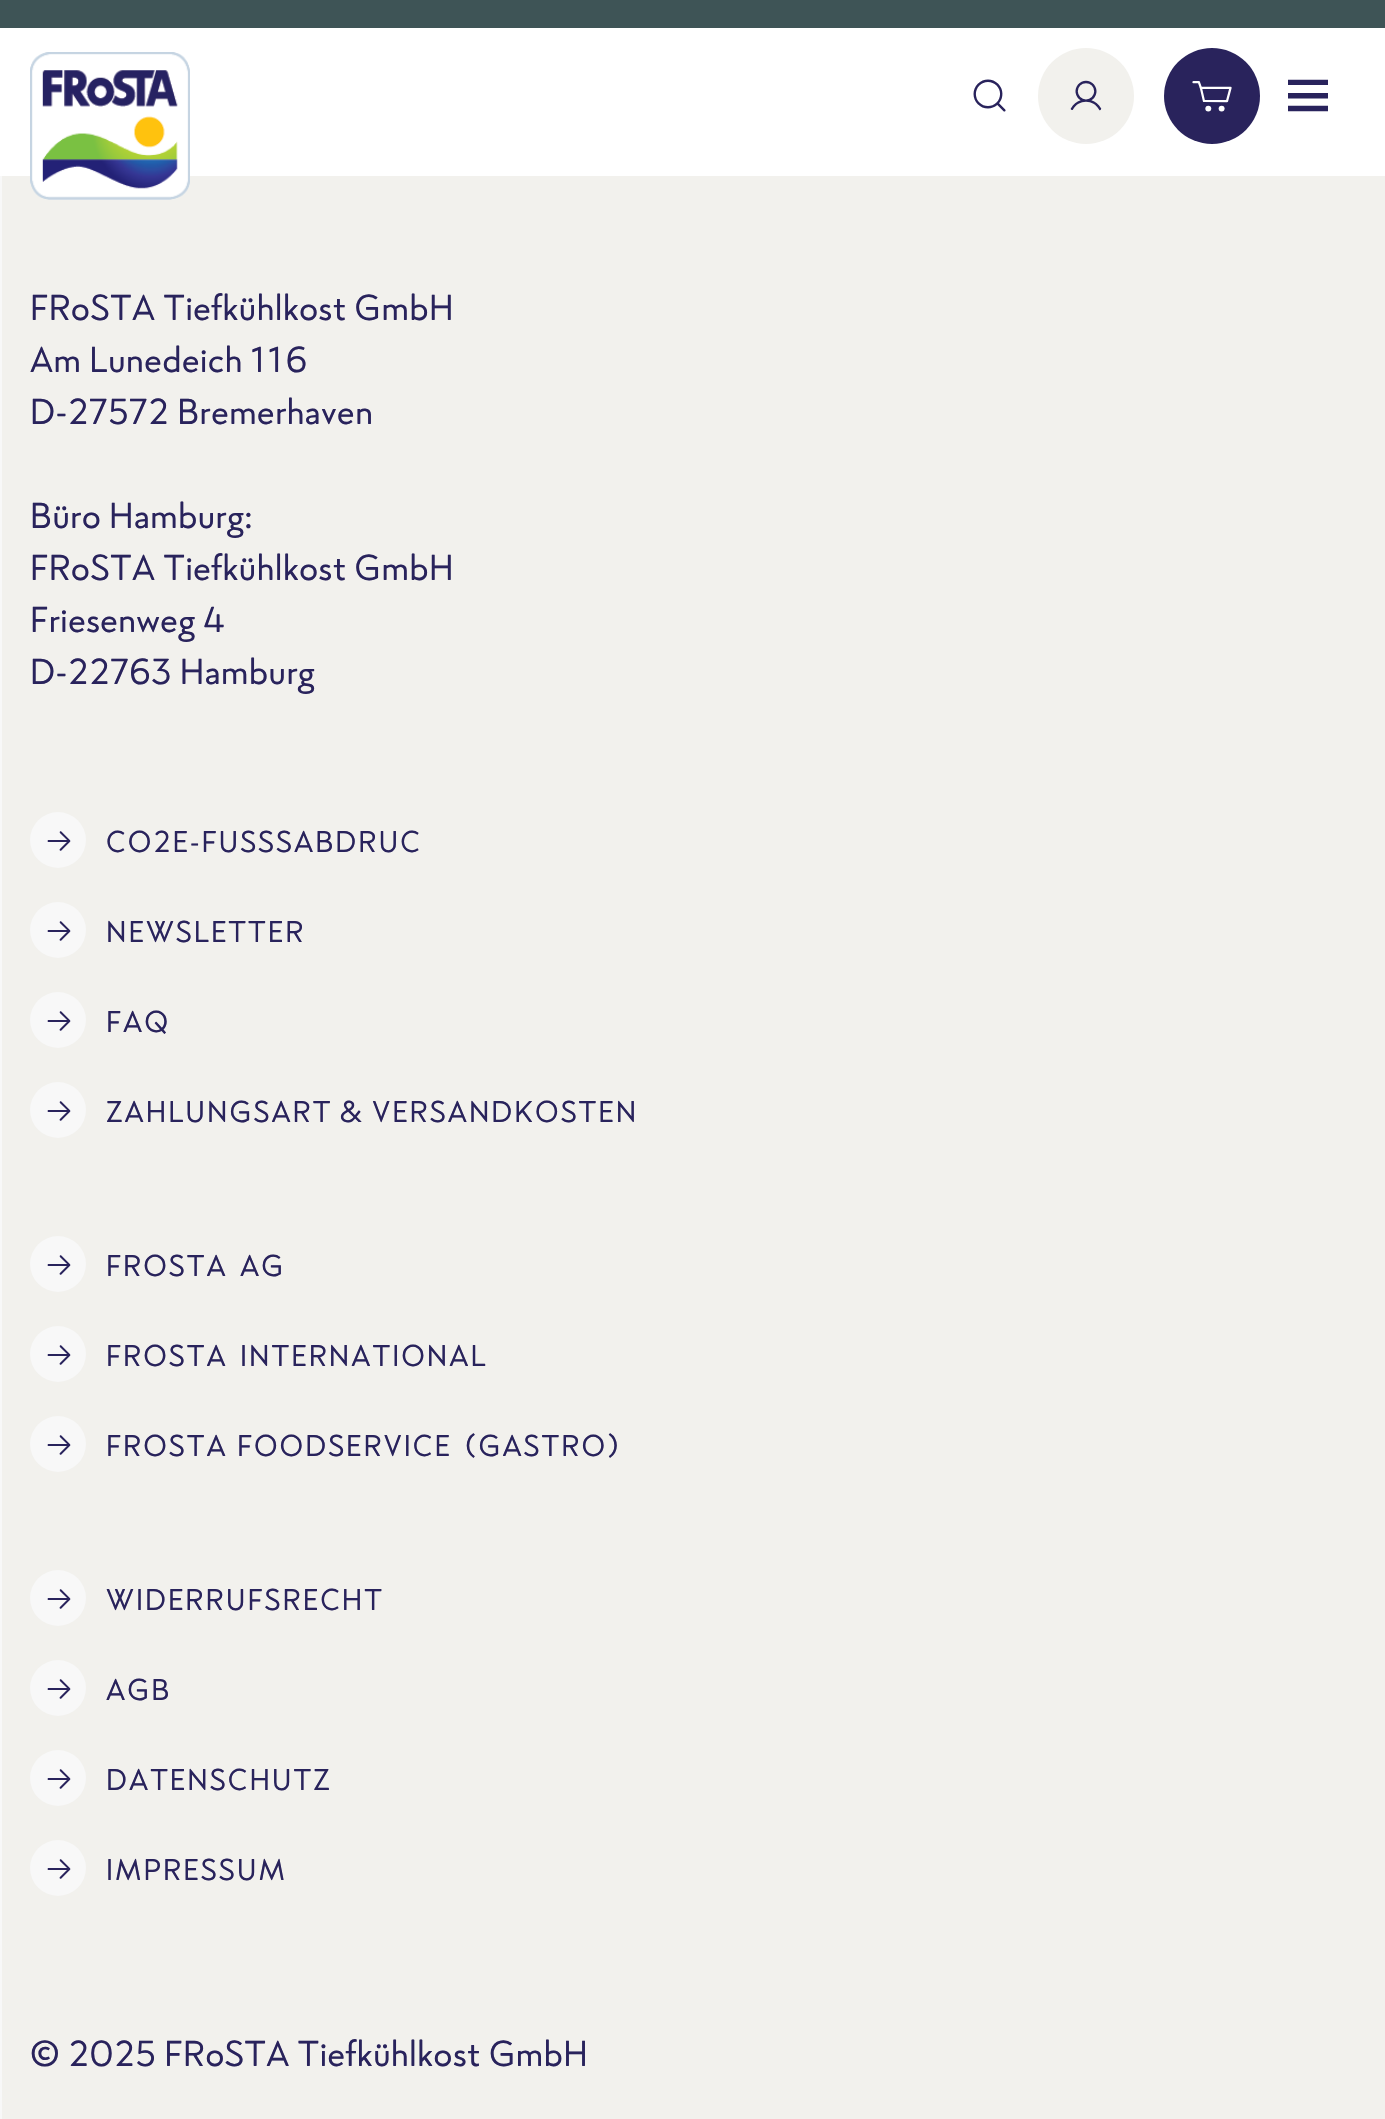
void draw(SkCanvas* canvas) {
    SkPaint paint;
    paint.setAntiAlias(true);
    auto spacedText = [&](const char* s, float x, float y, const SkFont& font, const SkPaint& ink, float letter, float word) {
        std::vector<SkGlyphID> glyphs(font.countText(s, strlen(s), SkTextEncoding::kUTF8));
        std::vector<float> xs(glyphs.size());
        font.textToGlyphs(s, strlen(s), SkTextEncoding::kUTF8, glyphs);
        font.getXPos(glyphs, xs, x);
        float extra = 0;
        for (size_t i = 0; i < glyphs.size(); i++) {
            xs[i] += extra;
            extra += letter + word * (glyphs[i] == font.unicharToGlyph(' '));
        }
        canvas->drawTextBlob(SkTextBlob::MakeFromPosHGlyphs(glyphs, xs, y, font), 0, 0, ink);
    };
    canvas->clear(0xFFF8F8F8);
    paint.setColor(0xFFFFFFFF);
    canvas->drawRect(SkRect::MakeXYWH(0, 28, 1385, 148), paint);
    paint.setColor(0xFF3E5456);
    canvas->drawRect(SkRect::MakeXYWH(0, 0, 1385, 28), paint);
    paint.setColor(0xFFF2F1ED);
    canvas->drawRect(SkRect::MakeXYWH(2, 176, 1383, 1943), paint);
    canvas->drawImageRect(SkImages::DeferredFromEncodedData(SkData::MakeFromFileName("img1.png")), SkRect::MakeXYWH(30, 52, 160, 148), SkSamplingOptions());
    canvas->drawImageRect(SkImages::DeferredFromEncodedData(SkData::MakeFromFileName("img2.png")), SkRect::MakeXYWH(973, 79, 33, 33), SkSamplingOptions());
    canvas->drawCircle(1086, 96, 48, paint);
    canvas->drawImageRect(SkImages::DeferredFromEncodedData(SkData::MakeFromFileName("img3.png")), SkRect::MakeXYWH(1070, 80, 32, 31), SkSamplingOptions());
    paint.setColor(0xFF29235C);
    canvas->drawCircle(1212, 96, 48, paint);
    canvas->drawImageRect(SkImages::DeferredFromEncodedData(SkData::MakeFromFileName("img4.png")), SkRect::MakeXYWH(1192, 81, 40, 31), SkSamplingOptions());
    canvas->drawImageRect(SkImages::DeferredFromEncodedData(SkData::MakeFromFileName("img5.png")), SkRect::MakeXYWH(1288, 79, 40, 33), SkSamplingOptions());
    SkFont font1(fontMgr->matchFamilyStyle("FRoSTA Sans", SkFontStyle::Normal()), 36);
    font1.setSubpixel(true);
    spacedText("FRoSTA Tiefkühlkost GmbH", 30, 320, font1, paint, 0.6f, 0);
    spacedText("Am Lunedeich 116", 30, 372, font1, paint, 0.6f, 0);
    spacedText("D-27572 Bremerhaven", 30, 424, font1, paint, 0.6f, 0);
    spacedText("Büro Hamburg:", 30, 528, font1, paint, 0.6f, 0);
    spacedText("FRoSTA Tiefkühlkost GmbH", 30, 580, font1, paint, 0.6f, 0);
    spacedText("Friesenweg 4", 30, 632, font1, paint, 0.6f, 0);
    spacedText("D-22763 Hamburg", 30, 684, font1, paint, 0.6f, 0);
    paint.setColor(0xFFF8F8F8);
    canvas->drawCircle(58, 840, 28, paint);
    canvas->drawImageRect(SkImages::DeferredFromEncodedData(SkData::MakeFromFileName("img6.png")), SkRect::MakeXYWH(47, 831, 24, 20), SkSamplingOptions());
    SkFont font2(fontMgr->matchFamilyStyle("FRoSTA Sans", SkFontStyle::Normal()), 30);
    font2.setSubpixel(true);
    paint.setColor(0xFF29235C);
    spacedText("CO2E-FUSSSABDRUC", 106, 852, font2, paint, 2, 0);
    paint.setColor(0xFFF8F8F8);
    canvas->drawCircle(58, 930, 28, paint);
    canvas->drawImageRect(SkImages::DeferredFromEncodedData(SkData::MakeFromFileName("img6.png")), SkRect::MakeXYWH(47, 921, 24, 20), SkSamplingOptions());
    paint.setColor(0xFF29235C);
    spacedText("NEWSLETTER", 106, 942, font2, paint, 2, 0);
    paint.setColor(0xFFF8F8F8);
    canvas->drawCircle(58, 1020, 28, paint);
    canvas->drawImageRect(SkImages::DeferredFromEncodedData(SkData::MakeFromFileName("img6.png")), SkRect::MakeXYWH(47, 1011, 24, 20), SkSamplingOptions());
    paint.setColor(0xFF29235C);
    spacedText("FAQ", 106, 1032, font2, paint, 2, 0);
    paint.setColor(0xFFF8F8F8);
    canvas->drawCircle(58, 1110, 28, paint);
    canvas->drawImageRect(SkImages::DeferredFromEncodedData(SkData::MakeFromFileName("img6.png")), SkRect::MakeXYWH(47, 1101, 24, 20), SkSamplingOptions());
    paint.setColor(0xFF29235C);
    spacedText("ZAHLUNGSART & VERSANDKOSTEN", 106, 1122, font2, paint, 2, 0);
    paint.setColor(0xFFF8F8F8);
    canvas->drawCircle(58, 1264, 28, paint);
    canvas->drawImageRect(SkImages::DeferredFromEncodedData(SkData::MakeFromFileName("img6.png")), SkRect::MakeXYWH(47, 1255, 24, 20), SkSamplingOptions());
    paint.setColor(0xFF29235C);
    spacedText("FROSTA", 106, 1276, font2, paint, 2, 8);
    spacedText("AG", 240, 1276, font2, paint, 2, 8);
    paint.setColor(0xFFF8F8F8);
    canvas->drawCircle(58, 1354, 28, paint);
    canvas->drawImageRect(SkImages::DeferredFromEncodedData(SkData::MakeFromFileName("img6.png")), SkRect::MakeXYWH(47, 1345, 24, 20), SkSamplingOptions());
    paint.setColor(0xFF29235C);
    spacedText("FROSTA", 106, 1366, font2, paint, 2, 8);
    spacedText("INTERNATIONAL", 240, 1366, font2, paint, 2, 8);
    paint.setColor(0xFFF8F8F8);
    canvas->drawCircle(58, 1444, 28, paint);
    canvas->drawImageRect(SkImages::DeferredFromEncodedData(SkData::MakeFromFileName("img6.png")), SkRect::MakeXYWH(47, 1435, 24, 20), SkSamplingOptions());
    paint.setColor(0xFF29235C);
    spacedText("FROSTA", 106, 1456, font2, paint, 2, 4);
    spacedText("FOODSERVICE (GASTRO)", 237, 1456, font2, paint, 2, 4);
    paint.setColor(0xFFF8F8F8);
    canvas->drawCircle(58, 1598, 28, paint);
    canvas->drawImageRect(SkImages::DeferredFromEncodedData(SkData::MakeFromFileName("img6.png")), SkRect::MakeXYWH(47, 1589, 24, 20), SkSamplingOptions());
    paint.setColor(0xFF29235C);
    spacedText("WIDERRUFSRECHT", 106, 1610, font2, paint, 2, 0);
    paint.setColor(0xFFF8F8F8);
    canvas->drawCircle(58, 1688, 28, paint);
    canvas->drawImageRect(SkImages::DeferredFromEncodedData(SkData::MakeFromFileName("img6.png")), SkRect::MakeXYWH(47, 1679, 24, 20), SkSamplingOptions());
    paint.setColor(0xFF29235C);
    spacedText("AGB", 106, 1700, font2, paint, 2, 0);
    paint.setColor(0xFFF8F8F8);
    canvas->drawCircle(58, 1778, 28, paint);
    canvas->drawImageRect(SkImages::DeferredFromEncodedData(SkData::MakeFromFileName("img6.png")), SkRect::MakeXYWH(47, 1769, 24, 20), SkSamplingOptions());
    paint.setColor(0xFF29235C);
    spacedText("DATENSCHUTZ", 106, 1790, font2, paint, 2, 0);
    paint.setColor(0xFFF8F8F8);
    canvas->drawCircle(58, 1868, 28, paint);
    canvas->drawImageRect(SkImages::DeferredFromEncodedData(SkData::MakeFromFileName("img6.png")), SkRect::MakeXYWH(47, 1859, 24, 20), SkSamplingOptions());
    paint.setColor(0xFF29235C);
    spacedText("IMPRESSUM", 106, 1880, font2, paint, 2, 0);
    spacedText("© 2025 FRoSTA Tiefkühlkost GmbH", 30, 2066, font1, paint, 0.6f, 0);
}
